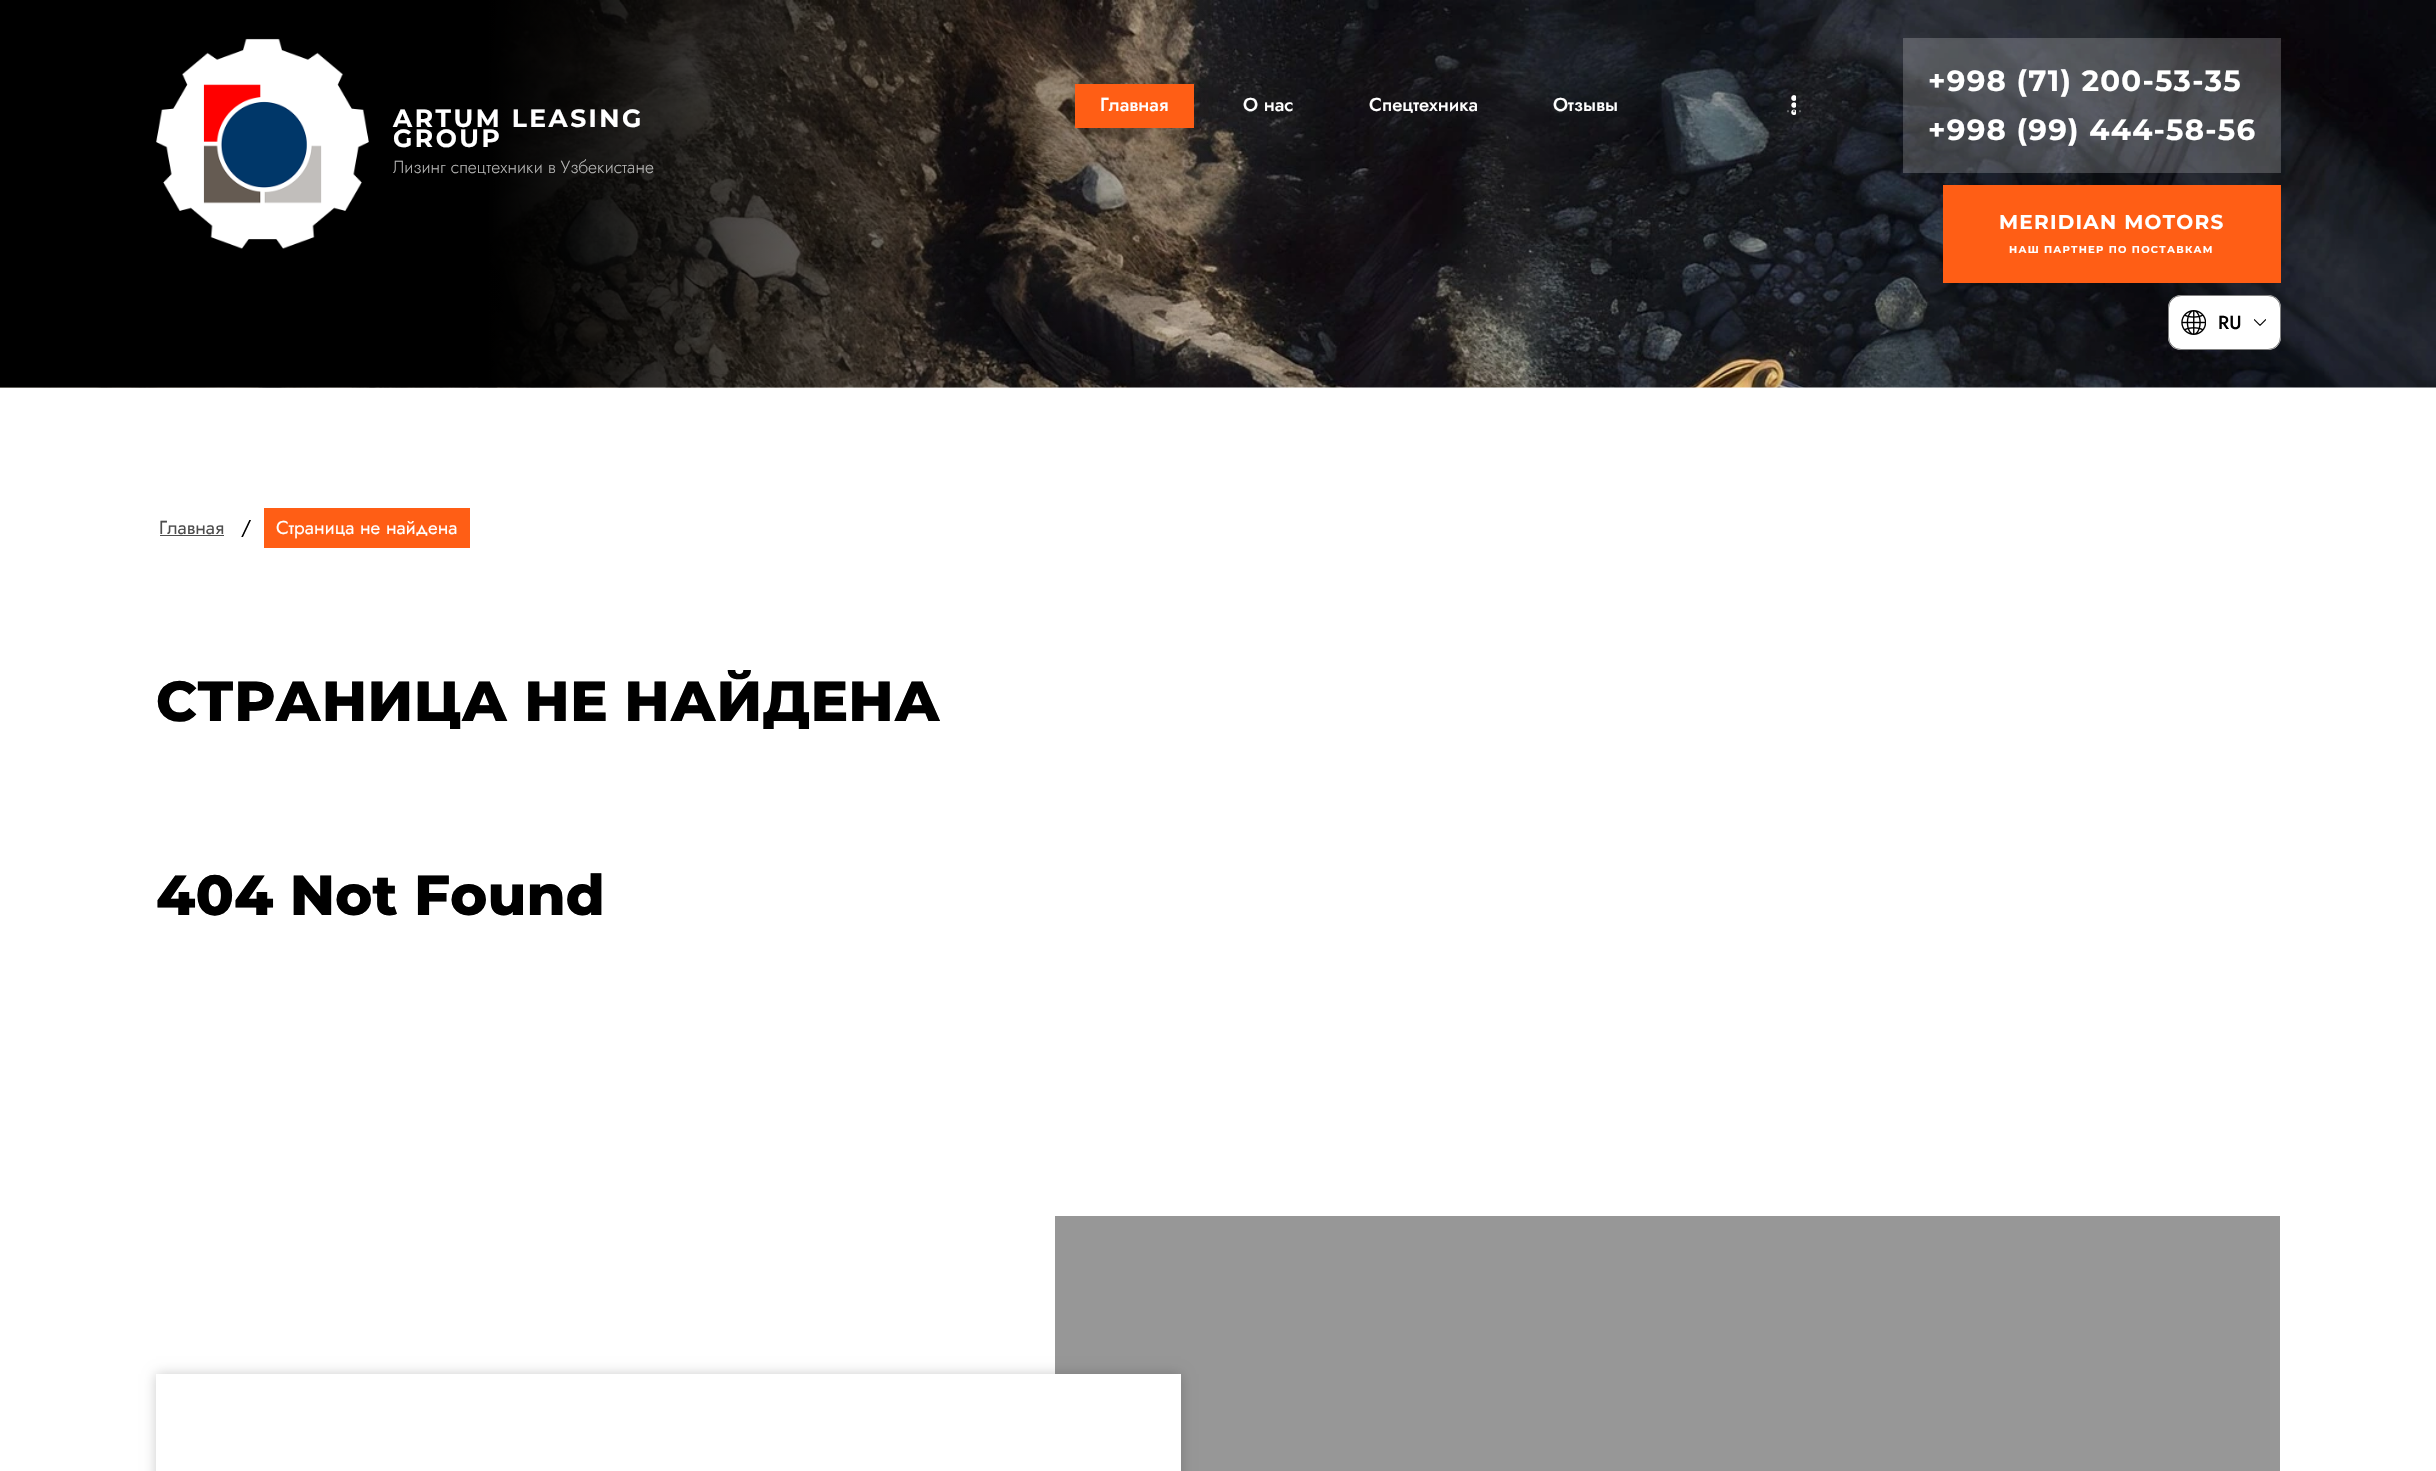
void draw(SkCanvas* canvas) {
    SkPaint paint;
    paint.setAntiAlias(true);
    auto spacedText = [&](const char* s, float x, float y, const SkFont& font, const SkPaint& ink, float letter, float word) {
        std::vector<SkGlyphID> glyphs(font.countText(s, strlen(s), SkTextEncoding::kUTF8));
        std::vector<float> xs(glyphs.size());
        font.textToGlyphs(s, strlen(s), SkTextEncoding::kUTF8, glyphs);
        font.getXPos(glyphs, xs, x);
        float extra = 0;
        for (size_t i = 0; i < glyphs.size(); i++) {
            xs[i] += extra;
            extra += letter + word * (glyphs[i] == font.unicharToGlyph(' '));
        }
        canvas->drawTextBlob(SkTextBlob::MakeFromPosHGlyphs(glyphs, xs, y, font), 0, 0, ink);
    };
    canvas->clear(0xFFFFFFFF);
    canvas->drawImageRect(SkImages::DeferredFromEncodedData(SkData::MakeFromFileName("img1.png")), SkRect::MakeXYWH(0, 0, 2436, 388), SkSamplingOptions());
    canvas->drawImageRect(SkImages::DeferredFromEncodedData(SkData::MakeFromFileName("img2.png")), SkRect::MakeXYWH(156, 38, 213, 211), SkSamplingOptions());
    SkFont font1(fontMgr->matchFamilyStyle("Montserrat", SkFontStyle::Bold()), 25);
    font1.setSubpixel(true);
    paint.setColor(0xFFFFFFFF);
    spacedText("ARTUM LEASING", 393, 127, font1, paint, 2.5f, 0);
    spacedText("GROUP", 393, 147, font1, paint, 2.5f, 0);
    SkFont font2(fontMgr->matchFamilyStyle("Jost", SkFontStyle(300, SkFontStyle::kNormal_Width, SkFontStyle::kUpright_Slant)), 17.5f);
    font2.setSubpixel(true);
    paint.setColor(0xFFB6B6B5);
    canvas->drawString("Лизинг спецтехники в Узбекистане", 393, 173, font2, paint);
    paint.setColor(0xFFFF5E15);
    canvas->drawRect(SkRect::MakeXYWH(1075, 84, 119, 44), paint);
    SkFont font3(fontMgr->matchFamilyStyle("Jost", SkFontStyle(500, SkFontStyle::kNormal_Width, SkFontStyle::kUpright_Slant)), 18.75f);
    font3.setSubpixel(true);
    paint.setColor(0xFFFFFFFF);
    canvas->drawString("Главная", 1100, 111, font3, paint);
    canvas->drawString("О нас", 1243, 111, font3, paint);
    canvas->drawString("Спецтехника", 1369, 111, font3, paint);
    canvas->drawString("Отзывы", 1553, 111, font3, paint);
    canvas->drawImageRect(SkImages::DeferredFromEncodedData(SkData::MakeFromFileName("img3.png")), SkRect::MakeXYWH(1791, 95, 5, 20), SkSamplingOptions());
    SkFont font4(fontMgr->matchFamilyStyle("Jost", SkFontStyle::Normal()), 20);
    font4.setSubpixel(true);
    paint.setColor(0xFF656769);
    canvas->drawString("...", 1785, 112, font4, paint);
    paint.setColor(0x33FFFFFF);
    canvas->drawRect(SkRect::MakeXYWH(1903, 38, 378, 135), paint);
    SkFont font5(fontMgr->matchFamilyStyle("Montserrat", SkFontStyle::Bold()), 29.25f);
    font5.setSubpixel(true);
    paint.setColor(0xFFFFFFFF);
    spacedText("+998 (71) 200-53-35", 1928, 91, font5, paint, 1.25f, 0);
    spacedText("+998 (99) 444-58-56", 1928, 140, font5, paint, 1.25f, 0);
    paint.setColor(0xFFFF5E15);
    canvas->drawRect(SkRect::MakeXYWH(1943, 185, 338, 98), paint);
    SkFont font6(fontMgr->matchFamilyStyle("Montserrat", SkFontStyle::Bold()), 20);
    font6.setSubpixel(true);
    paint.setColor(0xFFFFFFFF);
    spacedText("MERIDIAN MOTORS", 1999, 229, font6, paint, 1.25f, 0);
    SkFont font7(fontMgr->matchFamilyStyle("Montserrat", SkFontStyle::Bold()), 10);
    font7.setSubpixel(true);
    spacedText("НАШ ПАРТНЕР ПО ПОСТАВКАМ", 2009, 253, font7, paint, 1.25f, 0);
    canvas->drawRoundRect(SkRect::MakeXYWH(2168, 295, 113, 55), 13, 13, paint);
    paint.setStyle(SkPaint::kStroke_Style);
    paint.setStrokeWidth(1);
    paint.setColor(0x80000000);
    canvas->drawRoundRect(SkRect::MakeXYWH(2168.5f, 295.5f, 112, 54), 12.5f, 12.5f, paint);
    canvas->drawImageRect(SkImages::DeferredFromEncodedData(SkData::MakeFromFileName("img4.png")), SkRect::MakeXYWH(2181, 310, 25, 25), SkSamplingOptions());
    paint.setStyle(SkPaint::kFill_Style);
    paint.setColor(0xFF000000);
    canvas->drawString("RU", 2218, 329, font3, paint);
    canvas->drawImageRect(SkImages::DeferredFromEncodedData(SkData::MakeFromFileName("img5.png")), SkRect::MakeXYWH(2254, 319, 12, 7), SkSamplingOptions());
    SkFont font8(fontMgr->matchFamilyStyle("Jost", SkFontStyle::Normal()), 18.75f);
    font8.setSubpixel(true);
    paint.setColor(0xFF4D4D4D);
    canvas->drawString("Главная", 159, 534, font8, paint);
    canvas->drawRect(SkRect::MakeXYWH(160, 535, 64, 1), paint);
    paint.setColor(0xFF000000);
    canvas->drawString("/", 241, 534, font4, paint);
    paint.setColor(0xFFFF5E15);
    canvas->drawRect(SkRect::MakeXYWH(264, 508, 206, 40), paint);
    paint.setColor(0xFFFFFFFF);
    canvas->drawString("Страница не найдена", 276, 534, font8, paint);
    SkFont font9(fontMgr->matchFamilyStyle("Montserrat", SkFontStyle(800, SkFontStyle::kNormal_Width, SkFontStyle::kUpright_Slant)), 56.25f);
    font9.setSubpixel(true);
    paint.setColor(0xFF000000);
    canvas->drawString("СТРАНИЦА НЕ НАЙДЕНА", 156, 721, font9, paint);
    canvas->drawString("404 Not Found", 156, 915, font9, paint);
    paint.setColor(0xFF979797);
    canvas->drawRect(SkRect::MakeXYWH(1055, 1216, 1225, 255), paint);
    paint.setColor(0x33000000);
    paint.setMaskFilter(SkMaskFilter::MakeBlur(kNormal_SkBlurStyle, 6));
    canvas->drawRect(SkRect::MakeXYWH(156, 1374, 1025, 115), paint);
    paint.setMaskFilter(nullptr);
    paint.setColor(0xFFFFFFFF);
    canvas->drawRect(SkRect::MakeXYWH(156, 1374, 1025, 97), paint);
}
